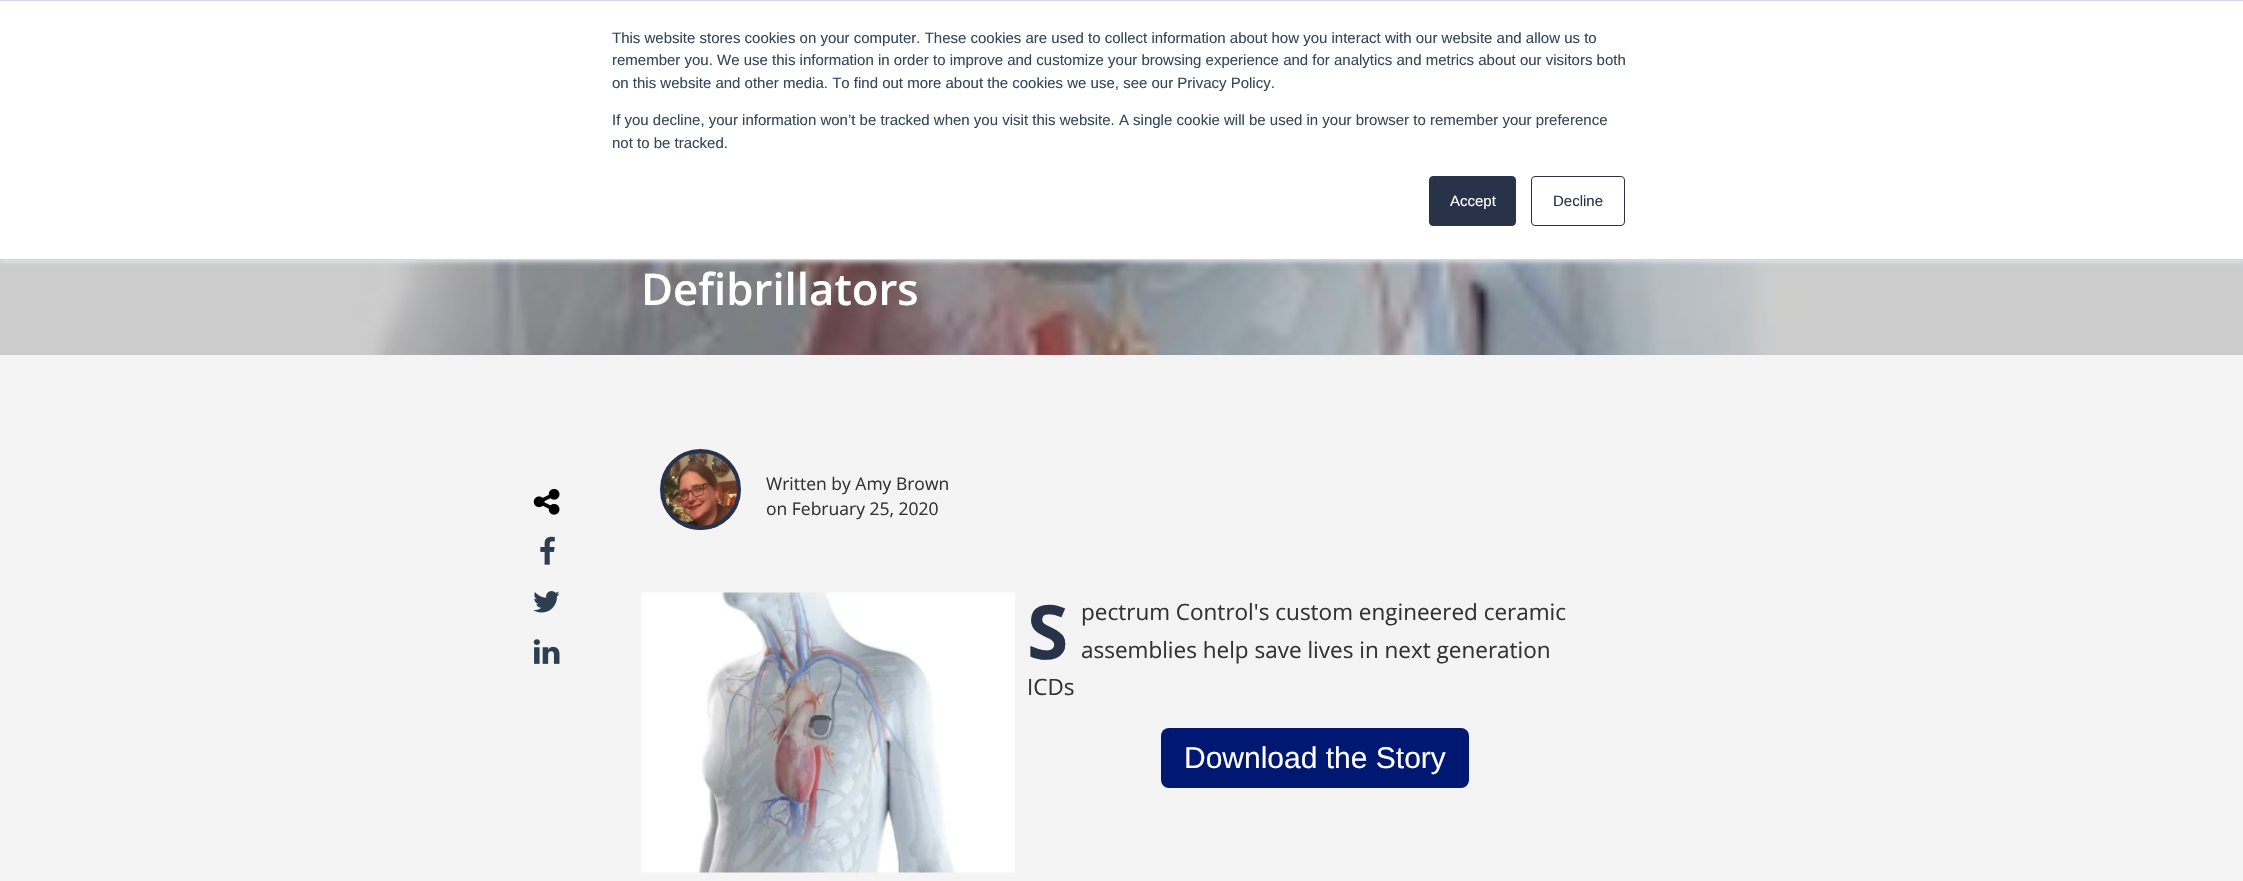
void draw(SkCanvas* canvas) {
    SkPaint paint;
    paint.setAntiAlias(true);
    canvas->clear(0xFFF5F4F4);
    canvas->drawImageRect(SkImages::DeferredFromEncodedData(SkData::MakeFromFileName("img1.png")), SkRect::MakeXYWH(0, 260, 2243, 95), SkSamplingOptions());
    paint.setColor(0xFFEAF0F6);
    paint.setMaskFilter(SkMaskFilter::MakeBlur(kNormal_SkBlurStyle, 3));
    canvas->drawRect(SkRect::MakeXYWH(0, 1, 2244, 260), paint);
    paint.setMaskFilter(nullptr);
    paint.setColor(0xFFFFFFFF);
    canvas->drawRect(SkRect::MakeXYWH(0, 1, 2243, 258), paint);
    paint.setColor(0xFFCBD6E2);
    canvas->drawRect(SkRect::MakeXYWH(0, 0, 2243, 1), paint);
    canvas->drawRect(SkRect::MakeXYWH(0, 259, 2243, 1), paint);
    SkFont font1(fontMgr->matchFamilyStyle("Liberation Sans", SkFontStyle::Normal()), 15);
    font1.setSubpixel(true);
    paint.setColor(0xFF33475B);
    canvas->drawString("This website stores cookies on your computer. These cookies are used to collect information about how you interact with our website and allow us to", 612, 43, font1, paint);
    canvas->drawString("remember you. We use this information in order to improve and customize your browsing experience and for analytics and metrics about our visitors both", 612, 65, font1, paint);
    canvas->drawString("on this website and other media. To find out more about the cookies we use, see our Privacy Policy.", 612, 88, font1, paint);
    canvas->drawString("If you decline, your information won’t be tracked when you visit this website. A single cookie will be used in your browser to remember your preference", 612, 125, font1, paint);
    canvas->drawString("not to be tracked.", 612, 148, font1, paint);
    paint.setColor(0xFF28334A);
    canvas->drawRoundRect(SkRect::MakeXYWH(1429.5f, 176.5f, 86, 49), 3.5f, 3.5f, paint);
    paint.setStyle(SkPaint::kStroke_Style);
    paint.setStrokeWidth(1);
    canvas->drawRoundRect(SkRect::MakeXYWH(1429.5f, 176.5f, 86, 49), 3.5f, 3.5f, paint);
    paint.setStyle(SkPaint::kFill_Style);
    paint.setColor(0xFFFFFFFF);
    canvas->drawString("Accept", 1450, 206, font1, paint);
    paint.setStyle(SkPaint::kStroke_Style);
    paint.setColor(0xFF28334A);
    canvas->drawRoundRect(SkRect::MakeXYWH(1531.5f, 176.5f, 93, 49), 3.5f, 3.5f, paint);
    paint.setStyle(SkPaint::kFill_Style);
    canvas->drawString("Decline", 1553, 206, font1, paint);
    SkFont font2(fontMgr->matchFamilyStyle("Open Sans", SkFontStyle(600, SkFontStyle::kNormal_Width, SkFontStyle::kUpright_Slant)), 43.75f);
    font2.setSubpixel(true);
    paint.setColor(0xFFFFFFFF);
    canvas->drawString("Defibrillators", 641, 305, font2, paint);
    canvas->drawImageRect(SkImages::DeferredFromEncodedData(SkData::MakeFromFileName("img2.png")), SkRect::MakeXYWH(533, 488, 27, 27), SkSamplingOptions());
    canvas->drawImageRect(SkImages::DeferredFromEncodedData(SkData::MakeFromFileName("img3.png")), SkRect::MakeXYWH(540, 536, 15, 29), SkSamplingOptions());
    canvas->drawImageRect(SkImages::DeferredFromEncodedData(SkData::MakeFromFileName("img4.png")), SkRect::MakeXYWH(533, 591, 27, 22), SkSamplingOptions());
    canvas->drawImageRect(SkImages::DeferredFromEncodedData(SkData::MakeFromFileName("img5.png")), SkRect::MakeXYWH(533, 639, 27, 25), SkSamplingOptions());
    canvas->drawImageRect(SkImages::DeferredFromEncodedData(SkData::MakeFromFileName("img6.png")), SkRect::MakeXYWH(663, 452, 75, 78), SkSamplingOptions());
    paint.setStyle(SkPaint::kStroke_Style);
    paint.setStrokeWidth(4);
    paint.setColor(0xFF28334A);
    canvas->drawCircle(700.5f, 489.5f, 38.5f, paint);
    SkFont font3(fontMgr->matchFamilyStyle("Open Sans", SkFontStyle::Normal()), 17.5f);
    font3.setSubpixel(true);
    paint.setStyle(SkPaint::kFill_Style);
    paint.setColor(0xFF333333);
    canvas->drawString("Written by Amy Brown", 766, 490, font3, paint);
    canvas->drawString("on February 25, 2020", 766, 515, font3, paint);
    canvas->drawImageRect(SkImages::DeferredFromEncodedData(SkData::MakeFromFileName("img7.png")), SkRect::MakeXYWH(641, 592, 374, 281), SkSamplingOptions());
    SkFont font4(fontMgr->matchFamilyStyle("Noto Sans", SkFontStyle::Bold()), 75);
    font4.setSubpixel(true);
    paint.setColor(0xFF28334A);
    canvas->drawString("S", 1027, 659, font4, paint);
    SkFont font5(fontMgr->matchFamilyStyle("Open Sans", SkFontStyle::Normal()), 22.5f);
    font5.setSubpixel(true);
    paint.setColor(0xFF333333);
    canvas->drawString("pectrum Control's custom engineered ceramic", 1081, 620, font5, paint);
    canvas->drawString("assemblies help save lives in next generation", 1081, 658, font5, paint);
    canvas->drawString("ICDs", 1027, 695, font5, paint);
    paint.setColor(0xFF001871);
    canvas->drawRoundRect(SkRect::MakeXYWH(1161, 728, 308, 60), 8, 8, paint);
    SkFont font6(fontMgr->matchFamilyStyle("Liberation Sans", SkFontStyle::Normal()), 30);
    font6.setSubpixel(true);
    paint.setColor(0xFFFFFFFF);
    canvas->drawString("Download the Story", 1184, 768, font6, paint);
}
